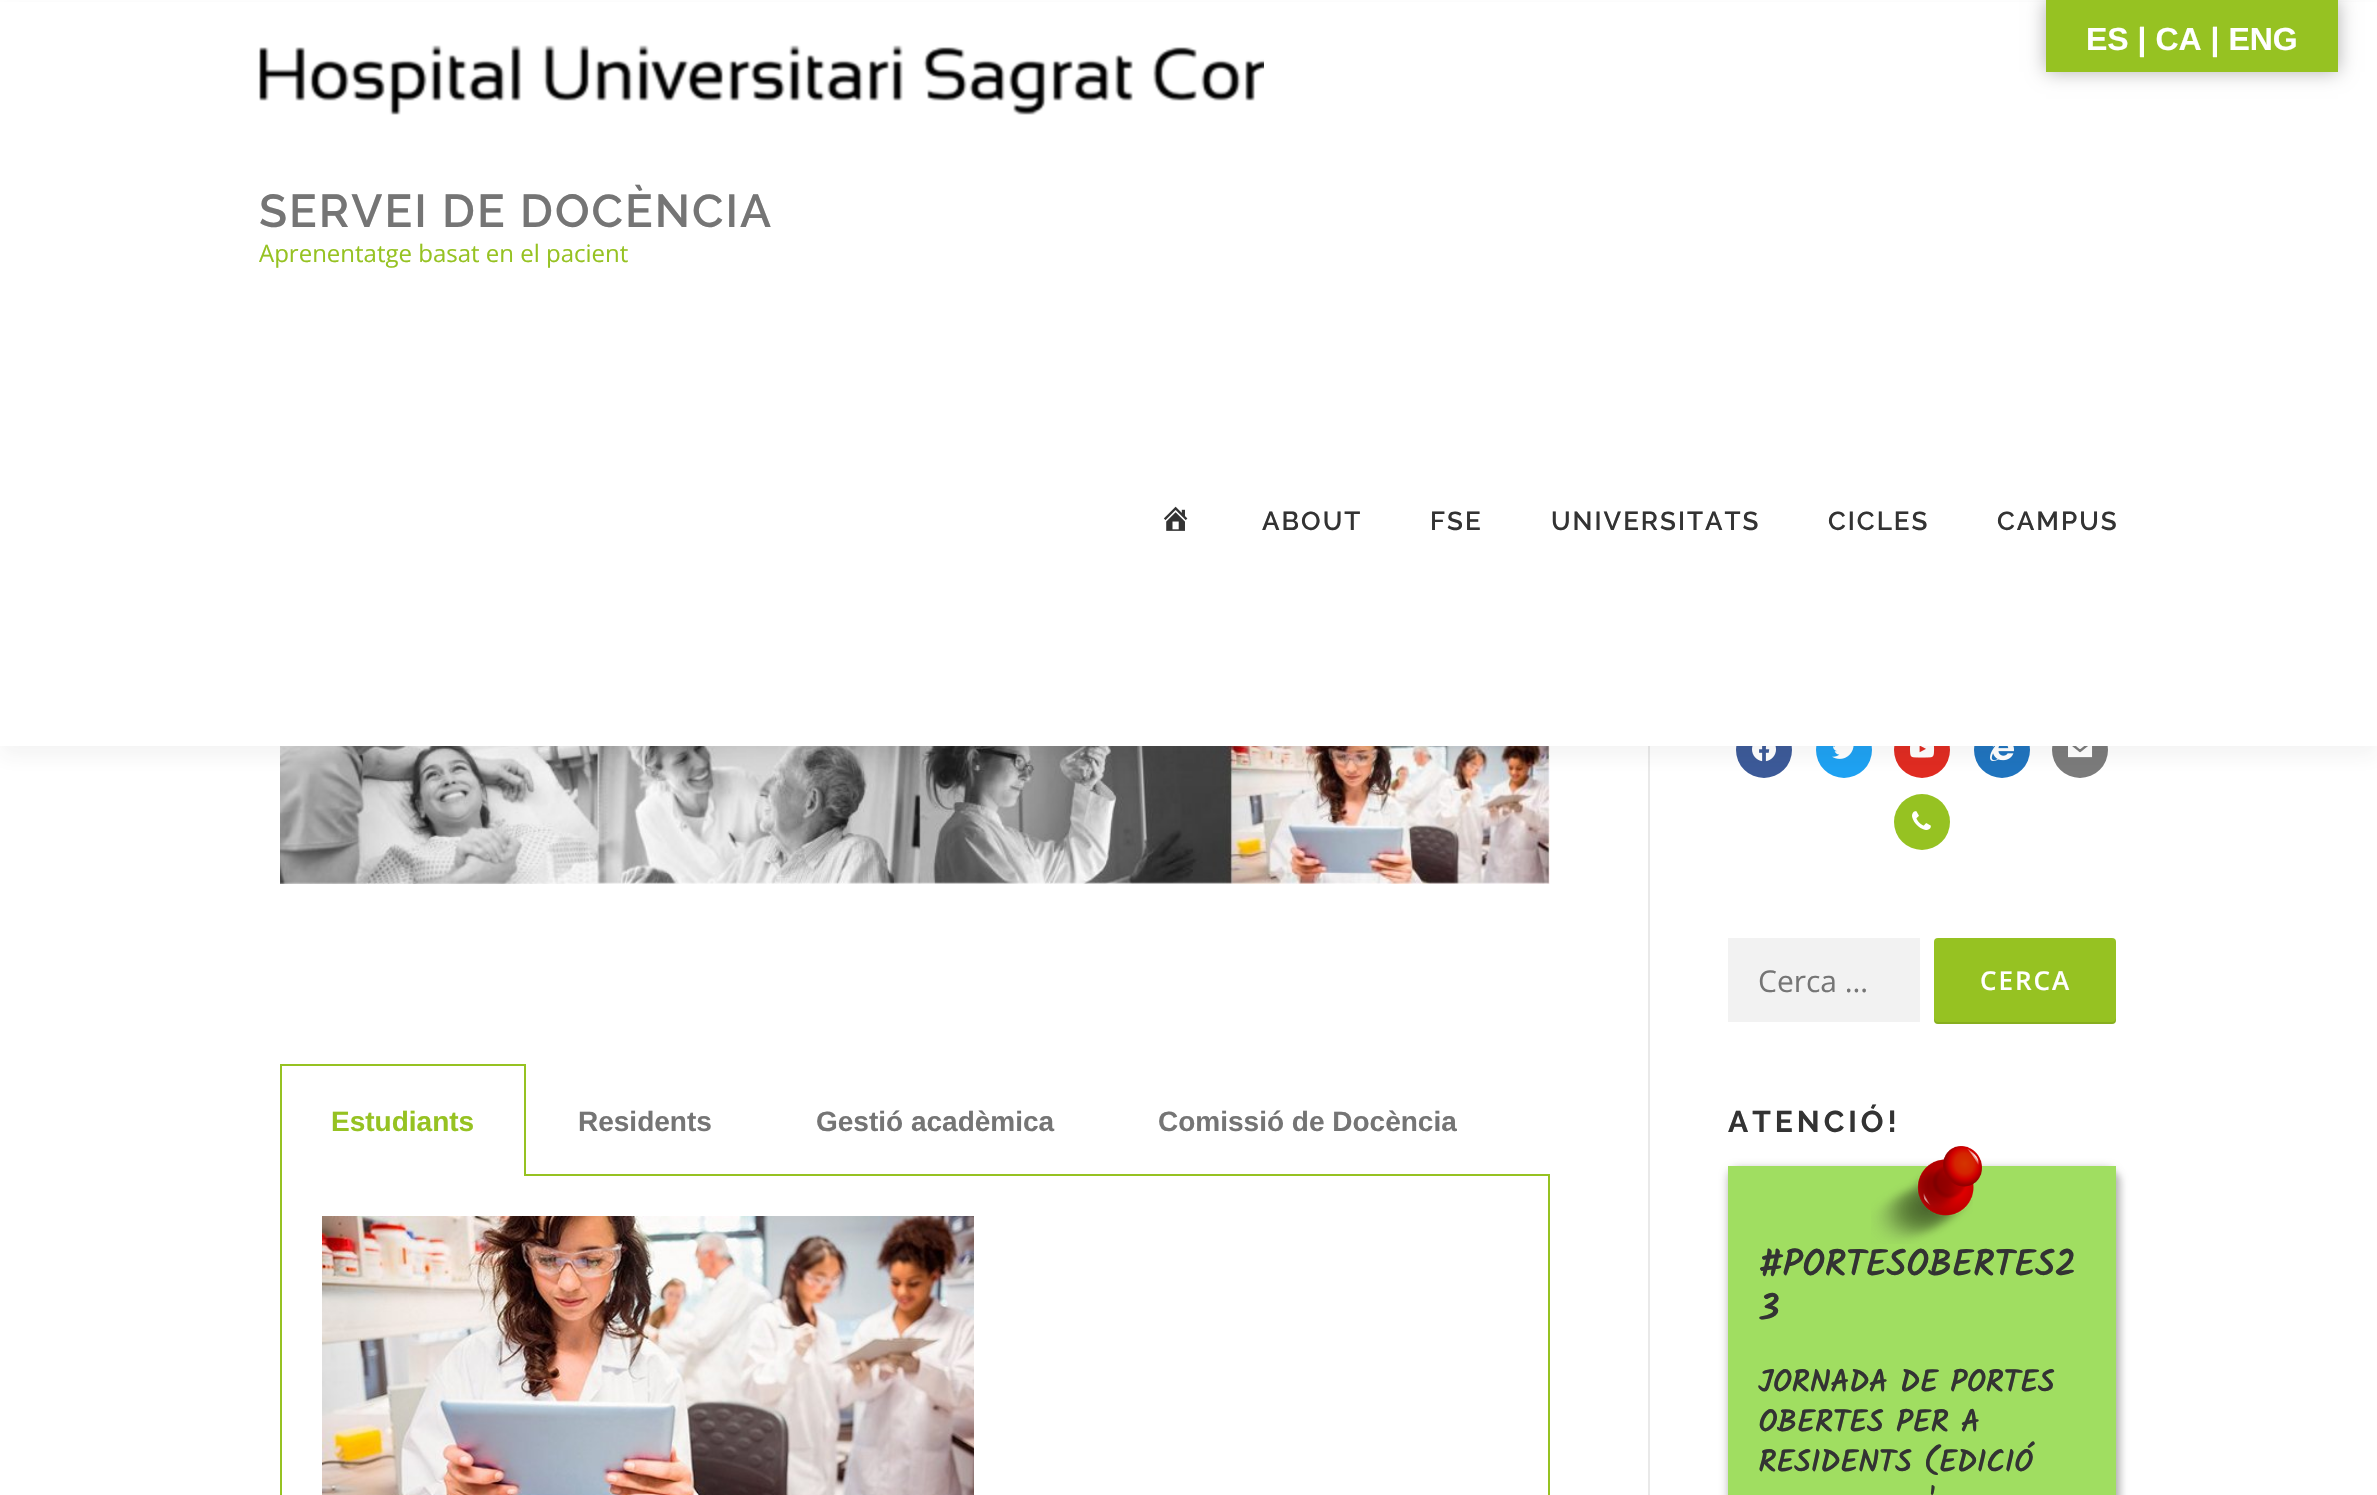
void draw(SkCanvas* canvas) {
    SkPaint paint;
    paint.setAntiAlias(true);
    auto spacedText = [&](const char* s, float x, float y, const SkFont& font, const SkPaint& ink, float letter, float word) {
        std::vector<SkGlyphID> glyphs(font.countText(s, strlen(s), SkTextEncoding::kUTF8));
        std::vector<float> xs(glyphs.size());
        font.textToGlyphs(s, strlen(s), SkTextEncoding::kUTF8, glyphs);
        font.getXPos(glyphs, xs, x);
        float extra = 0;
        for (size_t i = 0; i < glyphs.size(); i++) {
            xs[i] += extra;
            extra += letter + word * (glyphs[i] == font.unicharToGlyph(' '));
        }
        canvas->drawTextBlob(SkTextBlob::MakeFromPosHGlyphs(glyphs, xs, y, font), 0, 0, ink);
    };
    canvas->clear(0xFFFFFFFF);
    paint.setColor(0xFFE9E9E9);
    canvas->drawRect(SkRect::MakeXYWH(1648, 746, 2, 749), paint);
    canvas->drawImageRect(SkImages::DeferredFromEncodedData(SkData::MakeFromFileName("img3.png")), SkRect::MakeXYWH(280, 746, 1270, 138), SkSamplingOptions());
    paint.setColor(0xFF3B5998);
    canvas->drawCircle(1764, 750, 28, paint);
    canvas->drawImageRect(SkImages::DeferredFromEncodedData(SkData::MakeFromFileName("img5.png")), SkRect::MakeXYWH(1752, 746, 24, 16), SkSamplingOptions());
    paint.setColor(0xFF1DA1F2);
    canvas->drawCircle(1844, 750, 28, paint);
    canvas->drawImageRect(SkImages::DeferredFromEncodedData(SkData::MakeFromFileName("img6.png")), SkRect::MakeXYWH(1832, 746, 22, 13), SkSamplingOptions());
    paint.setColor(0xFFE02A20);
    canvas->drawCircle(1922, 750, 28, paint);
    canvas->drawImageRect(SkImages::DeferredFromEncodedData(SkData::MakeFromFileName("img7.png")), SkRect::MakeXYWH(1910, 746, 25, 12), SkSamplingOptions());
    paint.setColor(0xFF1E73BE);
    canvas->drawCircle(2002, 750, 28, paint);
    canvas->drawImageRect(SkImages::DeferredFromEncodedData(SkData::MakeFromFileName("img8.png")), SkRect::MakeXYWH(1990, 746, 24, 15), SkSamplingOptions());
    paint.setColor(0xFF7A7A7A);
    canvas->drawCircle(2080, 750, 28, paint);
    canvas->drawImageRect(SkImages::DeferredFromEncodedData(SkData::MakeFromFileName("img9.png")), SkRect::MakeXYWH(2068, 746, 25, 12), SkSamplingOptions());
    paint.setColor(0x0F323232);
    paint.setMaskFilter(SkMaskFilter::MakeBlur(kNormal_SkBlurStyle, 10));
    canvas->drawRect(SkRect::MakeXYWH(0, 10, 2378, 746), paint);
    paint.setMaskFilter(nullptr);
    paint.setColor(0xFFFFFFFF);
    canvas->drawRect(SkRect::MakeXYWH(0, 2, 2377, 744), paint);
    paint.setColor(0x4D000000);
    paint.setMaskFilter(SkMaskFilter::MakeBlur(kNormal_SkBlurStyle, 9));
    canvas->drawRect(SkRect::MakeXYWH(2046, 0, 292, 72), paint);
    paint.setMaskFilter(nullptr);
    paint.setColor(0xFF96C222);
    canvas->drawRect(SkRect::MakeXYWH(2046, 0, 292, 72), paint);
    SkFont font1(fontMgr->matchFamilyStyle("Liberation Sans", SkFontStyle::Bold()), 32);
    font1.setSubpixel(true);
    paint.setColor(0xFFFFFFFF);
    canvas->drawString("ES | CA | ENG", 2086, 50, font1, paint);
    canvas->drawImageRect(SkImages::DeferredFromEncodedData(SkData::MakeFromFileName("img1.png")), SkRect::MakeXYWH(259, 45, 1005, 70), SkSamplingOptions());
    SkFont font2(fontMgr->matchFamilyStyle("Raleway", SkFontStyle(600, SkFontStyle::kNormal_Width, SkFontStyle::kUpright_Slant)), 46);
    font2.setSubpixel(true);
    paint.setColor(0xFF757575);
    spacedText("SERVEI DE DOCÈNCIA", 259, 227, font2, paint, 2, 0);
    SkFont font3(fontMgr->matchFamilyStyle("Open Sans", SkFontStyle::Normal()), 24);
    font3.setSubpixel(true);
    paint.setColor(0xFF96C222);
    canvas->drawString("Aprenentatge basat en el pacient", 259, 262, font3, paint);
    canvas->drawImageRect(SkImages::DeferredFromEncodedData(SkData::MakeFromFileName("img2.png")), SkRect::MakeXYWH(1163, 506, 25, 25), SkSamplingOptions());
    SkFont font4(fontMgr->matchFamilyStyle("Raleway", SkFontStyle(600, SkFontStyle::kNormal_Width, SkFontStyle::kUpright_Slant)), 26);
    font4.setSubpixel(true);
    paint.setColor(0xFF333333);
    spacedText("ABOUT", 1262, 530, font4, paint, 2, 0);
    spacedText("FSE", 1430, 530, font4, paint, 2, 0);
    spacedText("UNIVERSITATS", 1551, 530, font4, paint, 2, 0);
    spacedText("CICLES", 1828, 530, font4, paint, 2, 0);
    spacedText("CAMPUS", 1997, 530, font4, paint, 2, 0);
    paint.setColor(0xFF96C222);
    canvas->drawRect(SkRect::MakeXYWH(280, 1064, 246, 2), paint);
    canvas->drawRect(SkRect::MakeXYWH(524, 1064, 2, 112), paint);
    canvas->drawRect(SkRect::MakeXYWH(280, 1064, 2, 112), paint);
    SkFont font5(fontMgr->matchFamilyStyle("Liberation Sans", SkFontStyle::Bold()), 28);
    font5.setSubpixel(true);
    canvas->drawString("Estudiants", 331, 1131, font5, paint);
    canvas->drawRect(SkRect::MakeXYWH(524, 1174, 1026, 2), paint);
    paint.setColor(0xFF757575);
    canvas->drawString("Residents", 578, 1131, font5, paint);
    canvas->drawString("Gestió acadèmica", 816, 1131, font5, paint);
    canvas->drawString("Comissió de Docència", 1158, 1131, font5, paint);
    paint.setColor(0xFF96C222);
    canvas->drawRect(SkRect::MakeXYWH(1548, 1176, 2, 319), paint);
    canvas->drawRect(SkRect::MakeXYWH(280, 1176, 2, 319), paint);
    canvas->drawImageRect(SkImages::DeferredFromEncodedData(SkData::MakeFromFileName("img4.png")), SkRect::MakeXYWH(322, 1216, 652, 279), SkSamplingOptions());
    canvas->drawCircle(1922, 822, 28, paint);
    canvas->drawImageRect(SkImages::DeferredFromEncodedData(SkData::MakeFromFileName("img10.png")), SkRect::MakeXYWH(1912, 811, 19, 19), SkSamplingOptions());
    paint.setColor(0xFFF2F2F2);
    canvas->drawRect(SkRect::MakeXYWH(1728, 938, 192, 84), paint);
    SkFont font6(fontMgr->matchFamilyStyle("Open Sans", SkFontStyle::Normal()), 30);
    font6.setSubpixel(true);
    paint.setColor(0xFF757575);
    canvas->drawString("Cerca …", 1758, 992, font6, paint);
    paint.setColor(0xFF96C222);
    canvas->drawRoundRect(SkRect::MakeXYWH(1934, 938, 182, 86), 4, 4, paint);
    paint.setColor(0x1A000000);
    canvas->drawPath(SkPathBuilder().moveTo(1934, 1018).lineTo(1934, 1020).cubicTo(1934, 1022, 1936, 1024, 1938, 1024).lineTo(2112, 1024).cubicTo(2114, 1024, 2116, 1022, 2116, 1020).lineTo(2116, 1018).cubicTo(2116, 1020, 2114, 1022, 2112, 1022).lineTo(1938, 1022).cubicTo(1936, 1022, 1934, 1020, 1934, 1018).close().detach(), paint);
    SkFont font7(fontMgr->matchFamilyStyle("Open Sans", SkFontStyle(600, SkFontStyle::kNormal_Width, SkFontStyle::kUpright_Slant)), 26);
    font7.setSubpixel(true);
    paint.setColor(0xFFFFFFFF);
    spacedText("CERCA", 1980, 990, font7, paint, 2, 0);
    SkFont font8(fontMgr->matchFamilyStyle("Raleway", SkFontStyle::Bold()), 30);
    font8.setSubpixel(true);
    paint.setColor(0xFF333333);
    spacedText("ATENCIÓ!", 1728, 1132, font8, paint, 4, 0);
    paint.setColor(0x26000000);
    paint.setMaskFilter(SkMaskFilter::MakeBlur(kNormal_SkBlurStyle, 3));
    canvas->drawRoundRect(SkRect::MakeXYWH(1734, 1172, 388, 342), 10, 10, paint);
    paint.setMaskFilter(nullptr);
    paint.setColor(0x45000000);
    paint.setMaskFilter(SkMaskFilter::MakeBlur(kNormal_SkBlurStyle, 4));
    canvas->drawRoundRect(SkRect::MakeXYWH(1728, 1168, 388, 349), 10, 10, paint);
    paint.setMaskFilter(nullptr);
    paint.setColor(0xFFA0DE61);
    canvas->drawPath(SkPathBuilder().moveTo(1728, 1166).lineTo(2116, 1166).lineTo(2116, 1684).cubicTo(2116, 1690, 2029, 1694, 1922, 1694).cubicTo(1815, 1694, 1728, 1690, 1728, 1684).close().detach(), paint);
    canvas->drawImageRect(SkImages::DeferredFromEncodedData(SkData::MakeFromFileName("img11.png")), SkRect::MakeXYWH(1871, 1146, 111, 98), SkSamplingOptions());
    SkFont font9(fontMgr->matchFamilyStyle("Kalam", SkFontStyle::Bold()), 36.5f);
    font9.setSubpixel(true);
    paint.setColor(0xFF333333);
    canvas->drawString("#PORTESOBERTES2", 1758, 1276, font9, paint);
    canvas->drawString("3", 1758, 1320, font9, paint);
    SkFont font10(fontMgr->matchFamilyStyle("Kalam", SkFontStyle::Bold()), 30.75f);
    font10.setSubpixel(true);
    canvas->drawString("JORNADA DE PORTES", 1758, 1392, font10, paint);
    canvas->drawString("OBERTES PER A", 1758, 1432, font10, paint);
    canvas->drawString("RESIDENTS (EDICIÓ", 1758, 1472, font10, paint);
    canvas->drawString("'", 1929, 1512, font10, paint);
}
